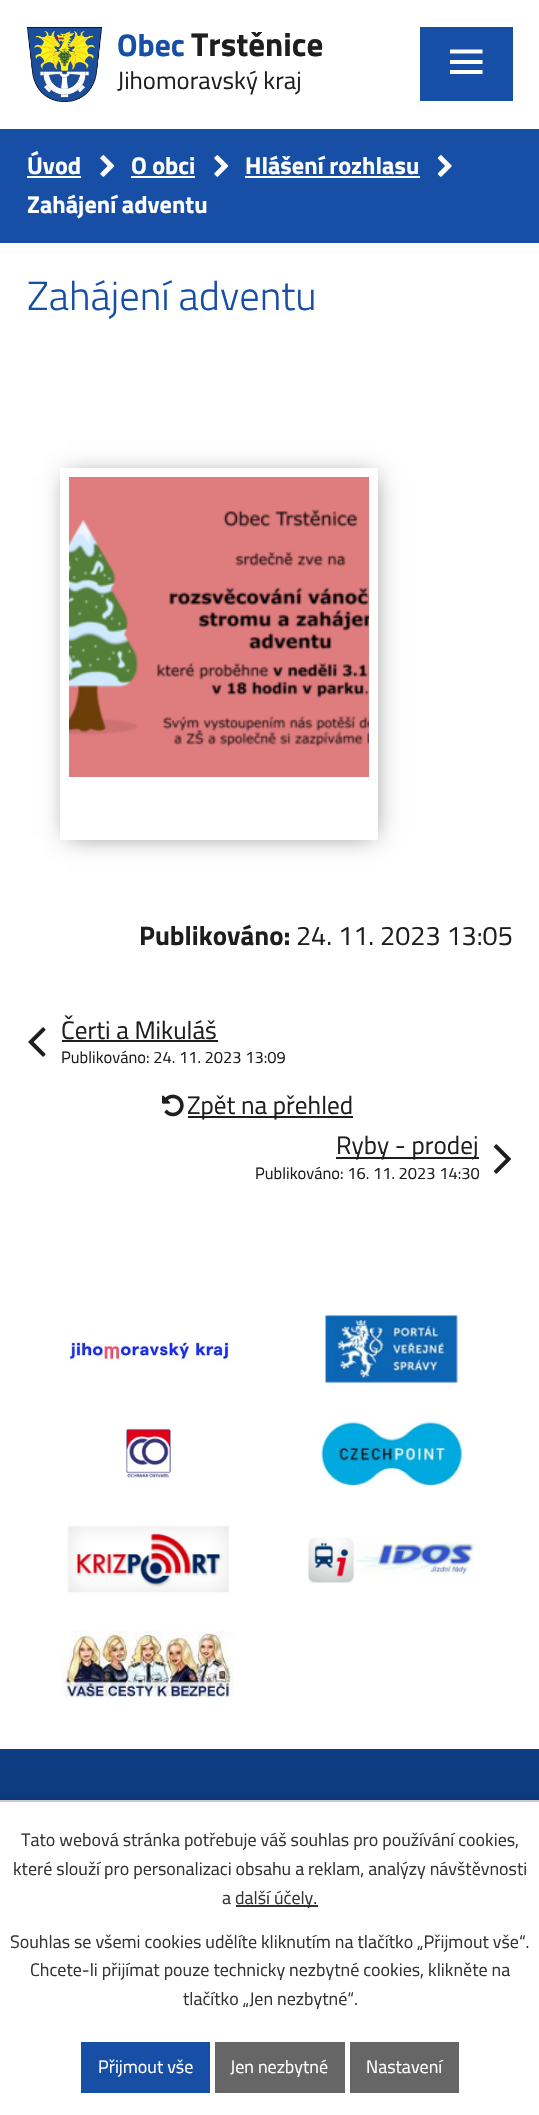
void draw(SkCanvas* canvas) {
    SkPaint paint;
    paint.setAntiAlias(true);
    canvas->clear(0xFFFFFFFF);
    canvas->drawImageRect(SkImages::DeferredFromEncodedData(SkData::MakeFromFileName("img1.png")), SkRect::MakeXYWH(27, 27, 75, 75), SkSamplingOptions());
    SkFont font1(fontMgr->matchFamilyStyle("Titillium Web", SkFontStyle::Bold()), 31.5f);
    font1.setSubpixel(true);
    paint.setColor(0xFF164FA5);
    canvas->drawString("Obec", 117, 56, font1, paint);
    SkFont font2(fontMgr->matchFamilyStyle("Titillium Web", SkFontStyle::Bold()), 33);
    font2.setSubpixel(true);
    paint.setColor(0xFF1E1E1E);
    canvas->drawString("Trstěnice", 191, 56, font2, paint);
    SkFont font3(fontMgr->matchFamilyStyle("Titillium Web", SkFontStyle::Normal()), 24.75f);
    font3.setSubpixel(true);
    canvas->drawString("Jihomoravský kraj", 117, 89, font3, paint);
    paint.setColor(0xFF164FA5);
    canvas->drawRect(SkRect::MakeXYWH(420, 27, 93, 74), paint);
    paint.setColor(0xFFFFFFFF);
    canvas->drawPath(SkPathBuilder().moveTo(450, 74).lineTo(450, 70).lineTo(482.5f, 70).lineTo(482.5f, 74).close().moveTo(450, 49.5f).lineTo(482.5f, 49.5f).lineTo(482.5f, 53.5f).lineTo(450, 53.5f).close().moveTo(450, 64).lineTo(450, 60).lineTo(482.5f, 60).lineTo(482.5f, 64).close().detach(), paint);
    paint.setColor(0xFF164FA5);
    canvas->drawRect(SkRect::MakeXYWH(0, 129, 539, 114), paint);
    SkFont font4(fontMgr->matchFamilyStyle("Titillium Web", SkFontStyle::Bold()), 24.25f);
    font4.setSubpixel(true);
    paint.setColor(0xFFFFFFFF);
    canvas->drawString("Úvod", 27, 174, font4, paint);
    canvas->drawRect(SkRect::MakeXYWH(27, 176, 54, 2), paint);
    canvas->drawImageRect(SkImages::DeferredFromEncodedData(SkData::MakeFromFileName("img2.png")), SkRect::MakeXYWH(100, 155, 15, 22), SkSamplingOptions());
    canvas->drawString("O obci", 131, 174, font4, paint);
    canvas->drawRect(SkRect::MakeXYWH(131, 176, 64, 2), paint);
    canvas->drawImageRect(SkImages::DeferredFromEncodedData(SkData::MakeFromFileName("img2.png")), SkRect::MakeXYWH(214, 155, 15, 22), SkSamplingOptions());
    canvas->drawString("Hlášení rozhlasu", 245, 174, font4, paint);
    canvas->drawRect(SkRect::MakeXYWH(245, 176, 175, 2), paint);
    canvas->drawImageRect(SkImages::DeferredFromEncodedData(SkData::MakeFromFileName("img3.png")), SkRect::MakeXYWH(437, 155, 15, 22), SkSamplingOptions());
    canvas->drawString("Zahájení adventu", 27, 213, font4, paint);
    SkFont font5(fontMgr->matchFamilyStyle("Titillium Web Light", SkFontStyle(300, SkFontStyle::kNormal_Width, SkFontStyle::kUpright_Slant)), 40.5f);
    font5.setSubpixel(true);
    paint.setColor(0xFF164FA5);
    canvas->drawString("Zahájení adventu", 27, 310, font5, paint);
    canvas->save();
    canvas->clipPath(SkPathBuilder(SkPathFillType::kEvenOdd).moveTo(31, 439).lineTo(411, 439).lineTo(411, 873).lineTo(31, 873).close().moveTo(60, 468).lineTo(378, 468).lineTo(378, 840).lineTo(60, 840).close().detach(), true);
    paint.setColor(0xFF888888);
    paint.setMaskFilter(SkMaskFilter::MakeBlur(kNormal_SkBlurStyle, 12));
    canvas->drawRect(SkRect::MakeXYWH(68, 476, 306, 360), paint);
    paint.setMaskFilter(nullptr);
    canvas->restore();
    canvas->drawImageRect(SkImages::DeferredFromEncodedData(SkData::MakeFromFileName("img4.png")), SkRect::MakeXYWH(69, 477, 300, 300), SkSamplingOptions());
    SkFont font6(fontMgr->matchFamilyStyle("Titillium Web", SkFontStyle::Bold()), 27);
    font6.setSubpixel(true);
    paint.setColor(0xFF1E1E1E);
    canvas->drawString("Publikováno:", 139, 945, font6, paint);
    SkFont font7(fontMgr->matchFamilyStyle("Titillium Web", SkFontStyle::Normal()), 27);
    font7.setSubpixel(true);
    canvas->drawString("24. 11. 2023 13:05", 296, 945, font7, paint);
    canvas->drawImageRect(SkImages::DeferredFromEncodedData(SkData::MakeFromFileName("img5.png")), SkRect::MakeXYWH(28, 1027, 18, 30), SkSamplingOptions());
    SkFont font8(fontMgr->matchFamilyStyle("Titillium Web", SkFontStyle::Normal()), 25.25f);
    font8.setSubpixel(true);
    canvas->drawString("Čerti a Mikuláš", 61, 1039, font8, paint);
    canvas->drawRect(SkRect::MakeXYWH(62, 1040, 156, 2), paint);
    SkFont font9(fontMgr->matchFamilyStyle("Titillium Web", SkFontStyle::Normal()), 16.5f);
    font9.setSubpixel(true);
    canvas->drawString("Publikováno: 24. 11. 2023 13:09", 61, 1063, font9, paint);
    canvas->drawImageRect(SkImages::DeferredFromEncodedData(SkData::MakeFromFileName("img6.png")), SkRect::MakeXYWH(162, 1094, 22, 23), SkSamplingOptions());
    canvas->drawRect(SkRect::MakeXYWH(188, 1116, 165, 2), paint);
    canvas->drawString("Zpět na přehled", 187, 1114, font8, paint);
    canvas->drawRect(SkRect::MakeXYWH(336, 1157, 143, 2), paint);
    canvas->drawString("Ryby - prodej", 336, 1154, font8, paint);
    canvas->drawString("Publikováno: 16. 11. 2023 14:30", 255, 1179, font9, paint);
    canvas->drawImageRect(SkImages::DeferredFromEncodedData(SkData::MakeFromFileName("img7.png")), SkRect::MakeXYWH(493, 1144, 18, 30), SkSamplingOptions());
    canvas->drawImageRect(SkImages::DeferredFromEncodedData(SkData::MakeFromFileName("img8.png")), SkRect::MakeXYWH(70, 1340, 163, 25), SkSamplingOptions());
    canvas->drawImageRect(SkImages::DeferredFromEncodedData(SkData::MakeFromFileName("img9.png")), SkRect::MakeXYWH(325, 1315, 133, 68), SkSamplingOptions());
    canvas->drawImageRect(SkImages::DeferredFromEncodedData(SkData::MakeFromFileName("img10.png")), SkRect::MakeXYWH(125, 1428, 46, 50), SkSamplingOptions());
    canvas->drawImageRect(SkImages::DeferredFromEncodedData(SkData::MakeFromFileName("img11.png")), SkRect::MakeXYWH(320, 1421, 143, 66), SkSamplingOptions());
    canvas->drawImageRect(SkImages::DeferredFromEncodedData(SkData::MakeFromFileName("img12.png")), SkRect::MakeXYWH(67, 1525, 162, 68), SkSamplingOptions());
    canvas->drawImageRect(SkImages::DeferredFromEncodedData(SkData::MakeFromFileName("img13.png")), SkRect::MakeXYWH(308, 1537, 167, 46), SkSamplingOptions());
    canvas->drawImageRect(SkImages::DeferredFromEncodedData(SkData::MakeFromFileName("img14.png")), SkRect::MakeXYWH(63, 1630, 171, 68), SkSamplingOptions());
    paint.setColor(0xFF0D3C83);
    canvas->drawRect(SkRect::MakeXYWH(0, 1749, 539, 51), paint);
    paint.setColor(0x33000000);
    paint.setMaskFilter(SkMaskFilter::MakeBlur(kNormal_SkBlurStyle, 4));
    canvas->drawRect(SkRect::MakeXYWH(0, 1800, 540, 315), paint);
    paint.setMaskFilter(nullptr);
    paint.setColor(0xFFFFFFFF);
    canvas->drawRect(SkRect::MakeXYWH(0, 1802, 539, 313), paint);
    paint.setColor(0xFFCCCCCC);
    canvas->drawRect(SkRect::MakeXYWH(0, 1800, 539, 2), paint);
    SkFont font10(fontMgr->matchFamilyStyle("Titillium Web", SkFontStyle::Normal()), 18);
    font10.setSubpixel(true);
    paint.setColor(0xFF333333);
    canvas->drawString("Tato webová stránka potřebuje váš souhlas pro používání cookies,", 21, 1846, font10, paint);
    canvas->drawString("které slouží pro personalizaci obsahu a reklam, analýzy návštěvnosti", 13, 1875, font10, paint);
    canvas->drawString("a", 222, 1904, font10, paint);
    canvas->drawRect(SkRect::MakeXYWH(236, 1905, 82, 2), paint);
    canvas->drawString("další účely.", 235, 1904, font10, paint);
    canvas->drawString("Souhlas se všemi cookies udělíte kliknutím na tlačítko „Přijmout vše“.", 10, 1948, font10, paint);
    canvas->drawString("Chcete-li přijímat pouze technicky nezbytné cookies, klikněte na", 30, 1976, font10, paint);
    canvas->drawString("tlačítko „Jen nezbytné“.", 183, 2005, font10, paint);
    paint.setColor(0xFF164FA5);
    canvas->drawRect(SkRect::MakeXYWH(81, 2042, 129, 51), paint);
    paint.setColor(0xFFFFFFFF);
    canvas->drawString("Přijmout vše", 98, 2073, font10, paint);
    paint.setColor(0xFF666666);
    canvas->drawRect(SkRect::MakeXYWH(215, 2042, 130, 51), paint);
    paint.setColor(0xFFFFFFFF);
    canvas->drawString("Jen nezbytné", 230, 2073, font10, paint);
    paint.setColor(0xFF666666);
    canvas->drawRect(SkRect::MakeXYWH(350, 2042, 109, 51), paint);
    paint.setColor(0xFFFFFFFF);
    canvas->drawString("Nastavení", 366, 2073, font10, paint);
}
